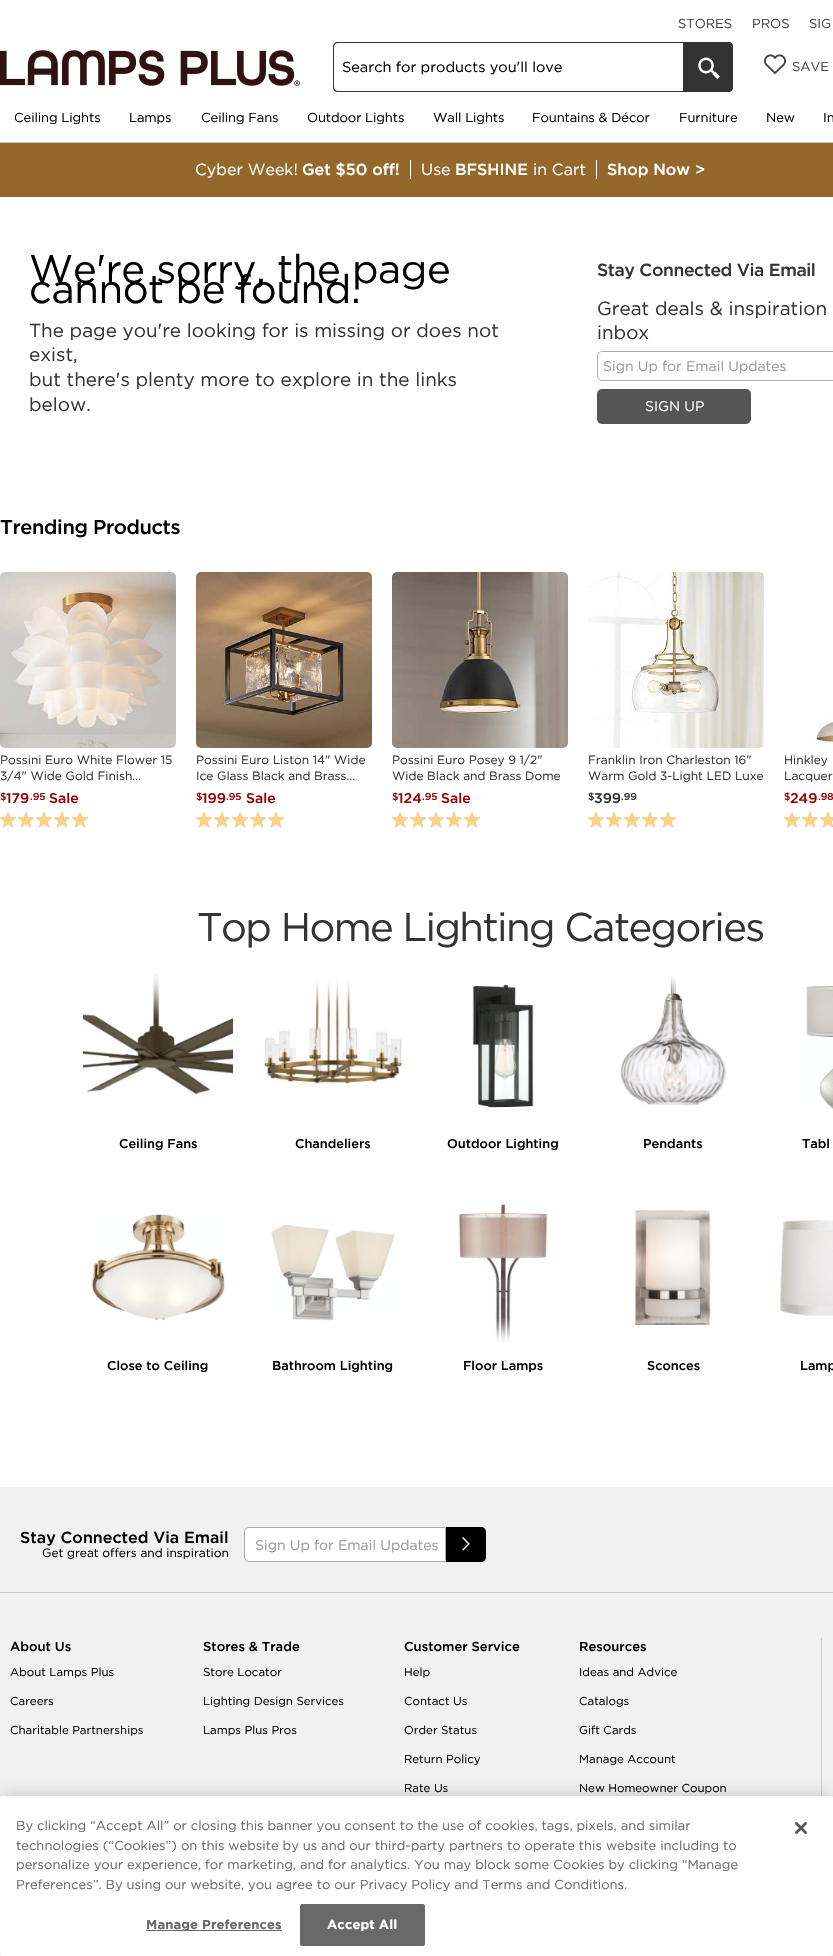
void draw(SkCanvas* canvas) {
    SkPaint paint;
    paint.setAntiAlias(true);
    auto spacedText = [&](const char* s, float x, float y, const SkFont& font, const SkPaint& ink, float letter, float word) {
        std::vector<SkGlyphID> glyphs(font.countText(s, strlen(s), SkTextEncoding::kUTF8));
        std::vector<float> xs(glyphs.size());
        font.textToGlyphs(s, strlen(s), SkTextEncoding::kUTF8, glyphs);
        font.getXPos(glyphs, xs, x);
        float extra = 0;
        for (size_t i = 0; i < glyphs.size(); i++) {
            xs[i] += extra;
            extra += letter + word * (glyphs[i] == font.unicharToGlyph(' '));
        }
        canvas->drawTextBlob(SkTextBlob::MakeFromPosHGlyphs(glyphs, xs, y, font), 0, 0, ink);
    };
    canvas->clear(0xFFFFFFFF);
    SkFont font1(fontMgr->matchFamilyStyle("Gotham", SkFontStyle::Normal()), 13);
    font1.setSubpixel(true);
    paint.setColor(0xFF444444);
    canvas->drawString("STORES", 678, 28, font1, paint);
    canvas->drawString("PROS", 752, 28, font1, paint);
    canvas->drawString("SIG", 809, 28, font1, paint);
    paint.setColor(0xFFCCCCCC);
    canvas->drawRect(SkRect::MakeXYWH(0, 142, 833, 1), paint);
    canvas->drawImageRect(SkImages::DeferredFromEncodedData(SkData::MakeFromFileName("img1.png")), SkRect::MakeXYWH(0, 50, 300, 36), SkSamplingOptions());
    paint.setColor(0xFF333333);
    canvas->drawPath(SkPathBuilder(SkPathFillType::kEvenOdd).moveTo(338, 42).lineTo(683, 42).lineTo(683, 92).lineTo(338, 92).cubicTo(335, 92, 333, 90, 333, 87).lineTo(333, 47).cubicTo(333, 44, 335, 42, 338, 42).close().moveTo(338, 43).lineTo(683, 43).lineTo(683, 91).lineTo(338, 91).cubicTo(336, 91, 334, 89, 334, 87).lineTo(334, 47).cubicTo(334, 45, 336, 43, 338, 43).close().detach(), paint);
    SkFont font2(fontMgr->matchFamilyStyle("Gotham", SkFontStyle::Normal()), 14.5f);
    font2.setSubpixel(true);
    paint.setColor(0xFF000000);
    canvas->drawString("Search for products you'll love", 342, 72, font2, paint);
    paint.setColor(0xFF333333);
    canvas->drawPath(SkPathBuilder().moveTo(683, 42).lineTo(728, 42).cubicTo(731, 42, 733, 44, 733, 47).lineTo(733, 87).cubicTo(733, 90, 731, 92, 728, 92).lineTo(683, 92).close().detach(), paint);
    canvas->drawPath(SkPathBuilder(SkPathFillType::kEvenOdd).moveTo(683, 42).lineTo(728, 42).cubicTo(731, 42, 733, 44, 733, 47).lineTo(733, 87).cubicTo(733, 90, 731, 92, 728, 92).lineTo(683, 92).close().moveTo(683, 43).lineTo(728, 43).cubicTo(730, 43, 732, 45, 732, 47).lineTo(732, 87).cubicTo(732, 89, 730, 91, 728, 91).lineTo(683, 91).close().detach(), paint);
    canvas->drawImageRect(SkImages::DeferredFromEncodedData(SkData::MakeFromFileName("img2.png")), SkRect::MakeXYWH(698, 57, 22, 23), SkSamplingOptions());
    canvas->drawImageRect(SkImages::DeferredFromEncodedData(SkData::MakeFromFileName("img3.png")), SkRect::MakeXYWH(764, 54, 22, 21), SkSamplingOptions());
    paint.setColor(0xFF444444);
    canvas->drawString("SAVE", 792, 71, font1, paint);
    paint.setColor(0xFF000000);
    spacedText("Ceiling Lights", 14, 122, font1, paint, -0.1f, 0);
    spacedText("Lamps", 129, 122, font1, paint, -0.1f, 0);
    spacedText("Ceiling Fans", 201, 122, font1, paint, -0.1f, 0);
    spacedText("Outdoor Lights", 307, 122, font1, paint, -0.1f, 0);
    spacedText("Wall Lights", 433, 122, font1, paint, -0.1f, 0);
    spacedText("Fountains & Décor", 532, 122, font1, paint, -0.1f, 0);
    spacedText("Furniture", 679, 122, font1, paint, -0.1f, 0);
    spacedText("New", 766, 122, font1, paint, -0.1f, 0);
    spacedText("In", 823, 122, font1, paint, -0.1f, 0);
    paint.setColor(0xFF94682A);
    canvas->drawRect(SkRect::MakeXYWH(0, 143, 833, 54), paint);
    paint.setColor(0xFFFFFFFF);
    canvas->drawRect(SkRect::MakeXYWH(410, 160, 1, 19), paint);
    SkFont font3(fontMgr->matchFamilyStyle("Gotham", SkFontStyle::Normal()), 16);
    font3.setSubpixel(true);
    canvas->drawString("Cyber Week!", 195, 175, font3, paint);
    SkFont font4(fontMgr->matchFamilyStyle("Gotham", SkFontStyle(500, SkFontStyle::kNormal_Width, SkFontStyle::kUpright_Slant)), 16);
    font4.setSubpixel(true);
    canvas->drawString("Get $50 off!", 302, 175, font4, paint);
    canvas->drawRect(SkRect::MakeXYWH(596, 160, 1, 19), paint);
    canvas->drawString("Use", 421, 175, font3, paint);
    canvas->drawString("BFSHINE", 455, 175, font4, paint);
    canvas->drawString("in Cart", 533, 175, font3, paint);
    canvas->drawString("Shop Now >", 607, 175, font4, paint);
    SkFont font5(fontMgr->matchFamilyStyle("Gotham", SkFontStyle::Normal()), 40);
    font5.setSubpixel(true);
    paint.setColor(0xFF000000);
    spacedText("We're sorry, the page", 29, 283, font5, paint, -0.4f, 0);
    spacedText("cannot be found.", 29, 303, font5, paint, -0.4f, 0);
    SkFont font6(fontMgr->matchFamilyStyle("Gotham", SkFontStyle::Normal()), 18.9f);
    font6.setSubpixel(true);
    paint.setColor(0xFF333333);
    canvas->drawString("The page you're looking for is missing or does not", 29, 337, font6, paint);
    canvas->drawString("exist,", 29, 361, font6, paint);
    canvas->drawString("but there's plenty more to explore in the links", 29, 386, font6, paint);
    canvas->drawString("below.", 29, 411, font6, paint);
    SkFont font7(fontMgr->matchFamilyStyle("Gotham", SkFontStyle(500, SkFontStyle::kNormal_Width, SkFontStyle::kUpright_Slant)), 17.5f);
    font7.setSubpixel(true);
    spacedText("Stay Connected Via Email", 597, 276, font7, paint, -0.4f, 0);
    canvas->drawString("Great deals & inspiration", 597, 315, font6, paint);
    canvas->drawString("inbox", 597, 339, font6, paint);
    paint.setStyle(SkPaint::kStroke_Style);
    paint.setStrokeWidth(1);
    paint.setColor(0xFFADAEAF);
    canvas->drawRoundRect(SkRect::MakeXYWH(597.5f, 351.5f, 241, 29), 4.5f, 4.5f, paint);
    SkFont font8(fontMgr->matchFamilyStyle("Gotham", SkFontStyle::Normal()), 14);
    font8.setSubpixel(true);
    paint.setStyle(SkPaint::kFill_Style);
    paint.setColor(0xFF999999);
    canvas->drawString("Sign Up for Email Updates", 603, 371, font8, paint);
    paint.setColor(0xFF555555);
    canvas->drawRoundRect(SkRect::MakeXYWH(597, 389, 154, 35), 5, 5, paint);
    paint.setColor(0xFFFFFFFF);
    canvas->drawString("SIGN UP", 645, 411, font8, paint);
    SkFont font9(fontMgr->matchFamilyStyle("Gotham", SkFontStyle(500, SkFontStyle::kNormal_Width, SkFontStyle::kUpright_Slant)), 20);
    font9.setSubpixel(true);
    paint.setColor(0xFF000000);
    spacedText("Trending Products", 0, 534, font9, paint, -0.4f, 0);
    canvas->drawImageRect(SkImages::DeferredFromEncodedData(SkData::MakeFromFileName("img4.png")), SkRect::MakeXYWH(0, 572, 176, 176), SkSamplingOptions());
    SkFont font10(fontMgr->matchFamilyStyle("Gotham", SkFontStyle::Normal()), 12);
    font10.setSubpixel(true);
    paint.setColor(0xFF333333);
    canvas->drawString("Possini Euro White Flower 15", 0, 764, font10, paint);
    canvas->drawString("3/4\" Wide Gold Finish…", 0, 780, font10, paint);
    SkFont font11(fontMgr->matchFamilyStyle("Gotham", SkFontStyle(500, SkFontStyle::kNormal_Width, SkFontStyle::kUpright_Slant)), 10);
    font11.setSubpixel(true);
    paint.setColor(0xFF990000);
    canvas->drawString("$", 0, 800, font11, paint);
    SkFont font12(fontMgr->matchFamilyStyle("Gotham", SkFontStyle(500, SkFontStyle::kNormal_Width, SkFontStyle::kUpright_Slant)), 14);
    font12.setSubpixel(true);
    canvas->drawString("179", 6, 803, font12, paint);
    canvas->drawString(".95", 30, 800, font11, paint);
    canvas->drawString("Sale", 49, 803, font12, paint);
    canvas->drawImageRect(SkImages::DeferredFromEncodedData(SkData::MakeFromFileName("img5.png")), SkRect::MakeXYWH(0, 812, 16, 16), SkSamplingOptions());
    canvas->drawImageRect(SkImages::DeferredFromEncodedData(SkData::MakeFromFileName("img5.png")), SkRect::MakeXYWH(18, 812, 16, 16), SkSamplingOptions());
    canvas->drawImageRect(SkImages::DeferredFromEncodedData(SkData::MakeFromFileName("img5.png")), SkRect::MakeXYWH(36, 812, 16, 16), SkSamplingOptions());
    canvas->drawImageRect(SkImages::DeferredFromEncodedData(SkData::MakeFromFileName("img5.png")), SkRect::MakeXYWH(54, 812, 16, 16), SkSamplingOptions());
    canvas->drawImageRect(SkImages::DeferredFromEncodedData(SkData::MakeFromFileName("img5.png")), SkRect::MakeXYWH(72, 812, 16, 16), SkSamplingOptions());
    canvas->drawImageRect(SkImages::DeferredFromEncodedData(SkData::MakeFromFileName("img6.png")), SkRect::MakeXYWH(196, 572, 176, 176), SkSamplingOptions());
    paint.setColor(0xFF333333);
    canvas->drawString("Possini Euro Liston 14\" Wide", 196, 764, font10, paint);
    canvas->drawString("Ice Glass Black and Brass…", 196, 780, font10, paint);
    paint.setColor(0xFF990000);
    canvas->drawString("$", 196, 800, font11, paint);
    canvas->drawString("199", 202, 803, font12, paint);
    canvas->drawString(".95", 226, 800, font11, paint);
    canvas->drawString("Sale", 246, 803, font12, paint);
    canvas->drawImageRect(SkImages::DeferredFromEncodedData(SkData::MakeFromFileName("img5.png")), SkRect::MakeXYWH(196, 812, 16, 16), SkSamplingOptions());
    canvas->drawImageRect(SkImages::DeferredFromEncodedData(SkData::MakeFromFileName("img5.png")), SkRect::MakeXYWH(214, 812, 16, 16), SkSamplingOptions());
    canvas->drawImageRect(SkImages::DeferredFromEncodedData(SkData::MakeFromFileName("img5.png")), SkRect::MakeXYWH(232, 812, 16, 16), SkSamplingOptions());
    canvas->drawImageRect(SkImages::DeferredFromEncodedData(SkData::MakeFromFileName("img5.png")), SkRect::MakeXYWH(250, 812, 16, 16), SkSamplingOptions());
    canvas->drawImageRect(SkImages::DeferredFromEncodedData(SkData::MakeFromFileName("img5.png")), SkRect::MakeXYWH(268, 812, 16, 16), SkSamplingOptions());
    canvas->drawImageRect(SkImages::DeferredFromEncodedData(SkData::MakeFromFileName("img7.png")), SkRect::MakeXYWH(392, 572, 176, 176), SkSamplingOptions());
    paint.setColor(0xFF333333);
    canvas->drawString("Possini Euro Posey 9 1/2\"", 392, 764, font10, paint);
    canvas->drawString("Wide Black and Brass Dome", 392, 780, font10, paint);
    paint.setColor(0xFF990000);
    canvas->drawString("$", 392, 800, font11, paint);
    canvas->drawString("124", 398, 803, font12, paint);
    canvas->drawString(".95", 422, 800, font11, paint);
    canvas->drawString("Sale", 441, 803, font12, paint);
    canvas->drawImageRect(SkImages::DeferredFromEncodedData(SkData::MakeFromFileName("img5.png")), SkRect::MakeXYWH(392, 812, 16, 16), SkSamplingOptions());
    canvas->drawImageRect(SkImages::DeferredFromEncodedData(SkData::MakeFromFileName("img5.png")), SkRect::MakeXYWH(410, 812, 16, 16), SkSamplingOptions());
    canvas->drawImageRect(SkImages::DeferredFromEncodedData(SkData::MakeFromFileName("img5.png")), SkRect::MakeXYWH(428, 812, 16, 16), SkSamplingOptions());
    canvas->drawImageRect(SkImages::DeferredFromEncodedData(SkData::MakeFromFileName("img5.png")), SkRect::MakeXYWH(446, 812, 16, 16), SkSamplingOptions());
    canvas->drawImageRect(SkImages::DeferredFromEncodedData(SkData::MakeFromFileName("img5.png")), SkRect::MakeXYWH(464, 812, 16, 16), SkSamplingOptions());
    canvas->drawImageRect(SkImages::DeferredFromEncodedData(SkData::MakeFromFileName("img8.png")), SkRect::MakeXYWH(588, 572, 176, 176), SkSamplingOptions());
    paint.setColor(0xFF333333);
    canvas->drawString("Franklin Iron Charleston 16\"", 588, 764, font10, paint);
    canvas->drawString("Warm Gold 3-Light LED Luxe", 588, 780, font10, paint);
    canvas->drawString("$", 588, 800, font11, paint);
    canvas->drawString("399", 594, 803, font12, paint);
    canvas->drawString(".99", 621, 800, font11, paint);
    canvas->drawImageRect(SkImages::DeferredFromEncodedData(SkData::MakeFromFileName("img5.png")), SkRect::MakeXYWH(588, 812, 16, 16), SkSamplingOptions());
    canvas->drawImageRect(SkImages::DeferredFromEncodedData(SkData::MakeFromFileName("img5.png")), SkRect::MakeXYWH(606, 812, 16, 16), SkSamplingOptions());
    canvas->drawImageRect(SkImages::DeferredFromEncodedData(SkData::MakeFromFileName("img5.png")), SkRect::MakeXYWH(624, 812, 16, 16), SkSamplingOptions());
    canvas->drawImageRect(SkImages::DeferredFromEncodedData(SkData::MakeFromFileName("img5.png")), SkRect::MakeXYWH(642, 812, 16, 16), SkSamplingOptions());
    canvas->drawImageRect(SkImages::DeferredFromEncodedData(SkData::MakeFromFileName("img5.png")), SkRect::MakeXYWH(660, 812, 16, 16), SkSamplingOptions());
    canvas->drawImageRect(SkImages::DeferredFromEncodedData(SkData::MakeFromFileName("img9.png")), SkRect::MakeXYWH(815, 718, 18, 29), SkSamplingOptions());
    canvas->drawString("Hinkley", 784, 764, font10, paint);
    canvas->drawString("Lacquer", 784, 780, font10, paint);
    paint.setColor(0xFF990000);
    canvas->drawString("$", 784, 800, font11, paint);
    canvas->drawString("249", 790, 803, font12, paint);
    canvas->drawString(".98", 818, 800, font11, paint);
    canvas->drawImageRect(SkImages::DeferredFromEncodedData(SkData::MakeFromFileName("img5.png")), SkRect::MakeXYWH(784, 812, 16, 16), SkSamplingOptions());
    canvas->drawImageRect(SkImages::DeferredFromEncodedData(SkData::MakeFromFileName("img5.png")), SkRect::MakeXYWH(802, 812, 16, 16), SkSamplingOptions());
    canvas->drawImageRect(SkImages::DeferredFromEncodedData(SkData::MakeFromFileName("img10.png")), SkRect::MakeXYWH(820, 812, 13, 16), SkSamplingOptions());
    paint.setColor(0xFF333333);
    spacedText("Top Home Lighting Categories", 197, 941, font5, paint, -1.6f, 0);
    canvas->drawImageRect(SkImages::DeferredFromEncodedData(SkData::MakeFromFileName("img11.png")), SkRect::MakeXYWH(83, 973, 150, 122), SkSamplingOptions());
    SkFont font13(fontMgr->matchFamilyStyle("Gotham", SkFontStyle(500, SkFontStyle::kNormal_Width, SkFontStyle::kUpright_Slant)), 12.75f);
    font13.setSubpixel(true);
    paint.setColor(0xFF000000);
    canvas->drawString("Ceiling Fans", 119, 1148, font13, paint);
    canvas->drawImageRect(SkImages::DeferredFromEncodedData(SkData::MakeFromFileName("img12.png")), SkRect::MakeXYWH(264, 978, 139, 106), SkSamplingOptions());
    canvas->drawString("Chandeliers", 295, 1148, font13, paint);
    canvas->drawImageRect(SkImages::DeferredFromEncodedData(SkData::MakeFromFileName("img13.png")), SkRect::MakeXYWH(472, 984, 62, 124), SkSamplingOptions());
    canvas->drawString("Outdoor Lighting", 447, 1148, font13, paint);
    canvas->drawImageRect(SkImages::DeferredFromEncodedData(SkData::MakeFromFileName("img14.png")), SkRect::MakeXYWH(620, 975, 106, 131), SkSamplingOptions());
    canvas->drawString("Pendants", 643, 1148, font13, paint);
    canvas->drawImageRect(SkImages::DeferredFromEncodedData(SkData::MakeFromFileName("img15.png")), SkRect::MakeXYWH(806, 985, 27, 124), SkSamplingOptions());
    canvas->drawString("Tabl", 802, 1148, font13, paint);
    canvas->drawImageRect(SkImages::DeferredFromEncodedData(SkData::MakeFromFileName("img16.png")), SkRect::MakeXYWH(91, 1214, 134, 107), SkSamplingOptions());
    canvas->drawString("Close to Ceiling", 107, 1370, font13, paint);
    canvas->drawImageRect(SkImages::DeferredFromEncodedData(SkData::MakeFromFileName("img17.png")), SkRect::MakeXYWH(271, 1224, 124, 97), SkSamplingOptions());
    canvas->drawString("Bathroom Lighting", 272, 1370, font13, paint);
    canvas->drawImageRect(SkImages::DeferredFromEncodedData(SkData::MakeFromFileName("img18.png")), SkRect::MakeXYWH(458, 1201, 90, 142), SkSamplingOptions());
    canvas->drawString("Floor Lamps", 463, 1370, font13, paint);
    canvas->drawImageRect(SkImages::DeferredFromEncodedData(SkData::MakeFromFileName("img19.png")), SkRect::MakeXYWH(634, 1210, 77, 115), SkSamplingOptions());
    canvas->drawString("Sconces", 647, 1370, font13, paint);
    canvas->drawImageRect(SkImages::DeferredFromEncodedData(SkData::MakeFromFileName("img20.png")), SkRect::MakeXYWH(779, 1219, 54, 97), SkSamplingOptions());
    canvas->drawString("Lamp", 800, 1370, font13, paint);
    paint.setColor(0xFFF1F1F1);
    canvas->drawRect(SkRect::MakeXYWH(0, 1487, 833, 469), paint);
    paint.setColor(0xFFCCCCCC);
    canvas->drawRect(SkRect::MakeXYWH(0, 1592, 833, 1), paint);
    paint.setColor(0xFF000000);
    canvas->drawString("Stay Connected Via Email", 20, 1543, font4, paint);
    canvas->drawString("Get great offers and inspiration", 42, 1557, font10, paint);
    paint.setColor(0xFFFFFFFF);
    canvas->drawPath(SkPathBuilder().moveTo(249, 1527.5f).lineTo(445.5f, 1527.5f).lineTo(445.5f, 1561.5f).lineTo(249, 1561.5f).cubicTo(246.5f, 1561.5f, 244.5f, 1559.5f, 244.5f, 1557).lineTo(244.5f, 1532).cubicTo(244.5f, 1529.5f, 246.5f, 1527.5f, 249, 1527.5f).close().detach(), paint);
    paint.setStyle(SkPaint::kStroke_Style);
    paint.setColor(0xFFA9A9A9);
    canvas->drawPath(SkPathBuilder().moveTo(249, 1527.5f).lineTo(445.5f, 1527.5f).lineTo(445.5f, 1561.5f).lineTo(249, 1561.5f).cubicTo(246.5f, 1561.5f, 244.5f, 1559.5f, 244.5f, 1557).lineTo(244.5f, 1532).cubicTo(244.5f, 1529.5f, 246.5f, 1527.5f, 249, 1527.5f).close().detach(), paint);
    paint.setStyle(SkPaint::kFill_Style);
    paint.setColor(0xFF999999);
    canvas->drawString("Sign Up for Email Updates", 255, 1550, font8, paint);
    paint.setColor(0xFF000000);
    canvas->drawPath(SkPathBuilder().moveTo(446, 1527).lineTo(481, 1527).cubicTo(484, 1527, 486, 1529, 486, 1532).lineTo(486, 1557).cubicTo(486, 1560, 484, 1562, 481, 1562).lineTo(446, 1562).close().detach(), paint);
    canvas->drawImageRect(SkImages::DeferredFromEncodedData(SkData::MakeFromFileName("img21.png")), SkRect::MakeXYWH(462, 1537, 8, 14), SkSamplingOptions());
    SkFont font14(fontMgr->matchFamilyStyle("Gotham", SkFontStyle(500, SkFontStyle::kNormal_Width, SkFontStyle::kUpright_Slant)), 13);
    font14.setSubpixel(true);
    canvas->drawString("About Us", 10, 1651, font14, paint);
    SkFont font15(fontMgr->matchFamilyStyle("Gotham", SkFontStyle::Normal()), 11.5f);
    font15.setSubpixel(true);
    canvas->drawString("About Lamps Plus", 10, 1676, font15, paint);
    canvas->drawString("Careers", 10, 1705, font15, paint);
    canvas->drawString("Charitable Partnerships", 10, 1734, font15, paint);
    canvas->drawString("Stores & Trade", 203, 1651, font14, paint);
    canvas->drawString("Store Locator", 203, 1676, font15, paint);
    canvas->drawString("Lighting Design Services", 203, 1705, font15, paint);
    canvas->drawString("Lamps Plus Pros", 203, 1734, font15, paint);
    canvas->drawString("Customer Service", 404, 1651, font14, paint);
    canvas->drawString("Help", 404, 1676, font15, paint);
    canvas->drawString("Contact Us", 404, 1705, font15, paint);
    canvas->drawString("Order Status", 404, 1734, font15, paint);
    canvas->drawString("Return Policy", 404, 1763, font15, paint);
    canvas->drawString("Rate Us", 404, 1792, font15, paint);
    canvas->drawString("Resources", 579, 1651, font14, paint);
    canvas->drawString("Ideas and Advice", 579, 1676, font15, paint);
    canvas->drawString("Catalogs", 579, 1705, font15, paint);
    canvas->drawString("Gift Cards", 579, 1734, font15, paint);
    canvas->drawString("Manage Account", 579, 1763, font15, paint);
    canvas->drawString("New Homeowner Coupon", 579, 1792, font15, paint);
    paint.setColor(0xFFCCCCCC);
    canvas->drawRect(SkRect::MakeXYWH(821, 1638, 1, 158), paint);
    paint.setColor(0x33000000);
    paint.setMaskFilter(SkMaskFilter::MakeBlur(kNormal_SkBlurStyle, 9));
    canvas->drawRoundRect(SkRect::MakeXYWH(0, 1796, 833, 160), 2, 2, paint);
    paint.setMaskFilter(nullptr);
    paint.setColor(0xFFFFFFFF);
    canvas->drawRoundRect(SkRect::MakeXYWH(0, 1796, 833, 160), 2, 2, paint);
    paint.setColor(0xFF696969);
    canvas->drawString("By clicking “Accept All” or closing this banner you consent to the use of cookies, tags, pixels, and similar", 16, 1830, font1, paint);
    canvas->drawString("technologies (“Cookies”) on this website by us and our third-party partners to operate this website including to", 16, 1850, font1, paint);
    canvas->drawString("personalize your experience, for marketing, and for analytics. You may block some Cookies by clicking “Manage", 16, 1869, font1, paint);
    canvas->drawString("Preferences”. By using our website, you agree to our Privacy Policy and Terms and Conditions.", 16, 1889, font1, paint);
    canvas->drawRect(SkRect::MakeXYWH(146, 1930, 136, 1), paint);
    SkFont font16(fontMgr->matchFamilyStyle("Gotham", SkFontStyle::Bold()), 13);
    font16.setSubpixel(true);
    spacedText("Manage Preferences", 146, 1929, font16, paint, 0.1f, 0);
    canvas->drawRoundRect(SkRect::MakeXYWH(300.5f, 1904.5f, 124, 41), 1.5f, 1.5f, paint);
    paint.setStyle(SkPaint::kStroke_Style);
    canvas->drawRoundRect(SkRect::MakeXYWH(300.5f, 1904.5f, 124, 41), 1.5f, 1.5f, paint);
    paint.setStyle(SkPaint::kFill_Style);
    paint.setColor(0xFFFFFFFF);
    spacedText("Accept All", 327, 1929, font16, paint, 0.1f, 0);
    canvas->drawImageRect(SkImages::DeferredFromEncodedData(SkData::MakeFromFileName("img22.png")), SkRect::MakeXYWH(795, 1822, 12, 12), SkSamplingOptions());
}
